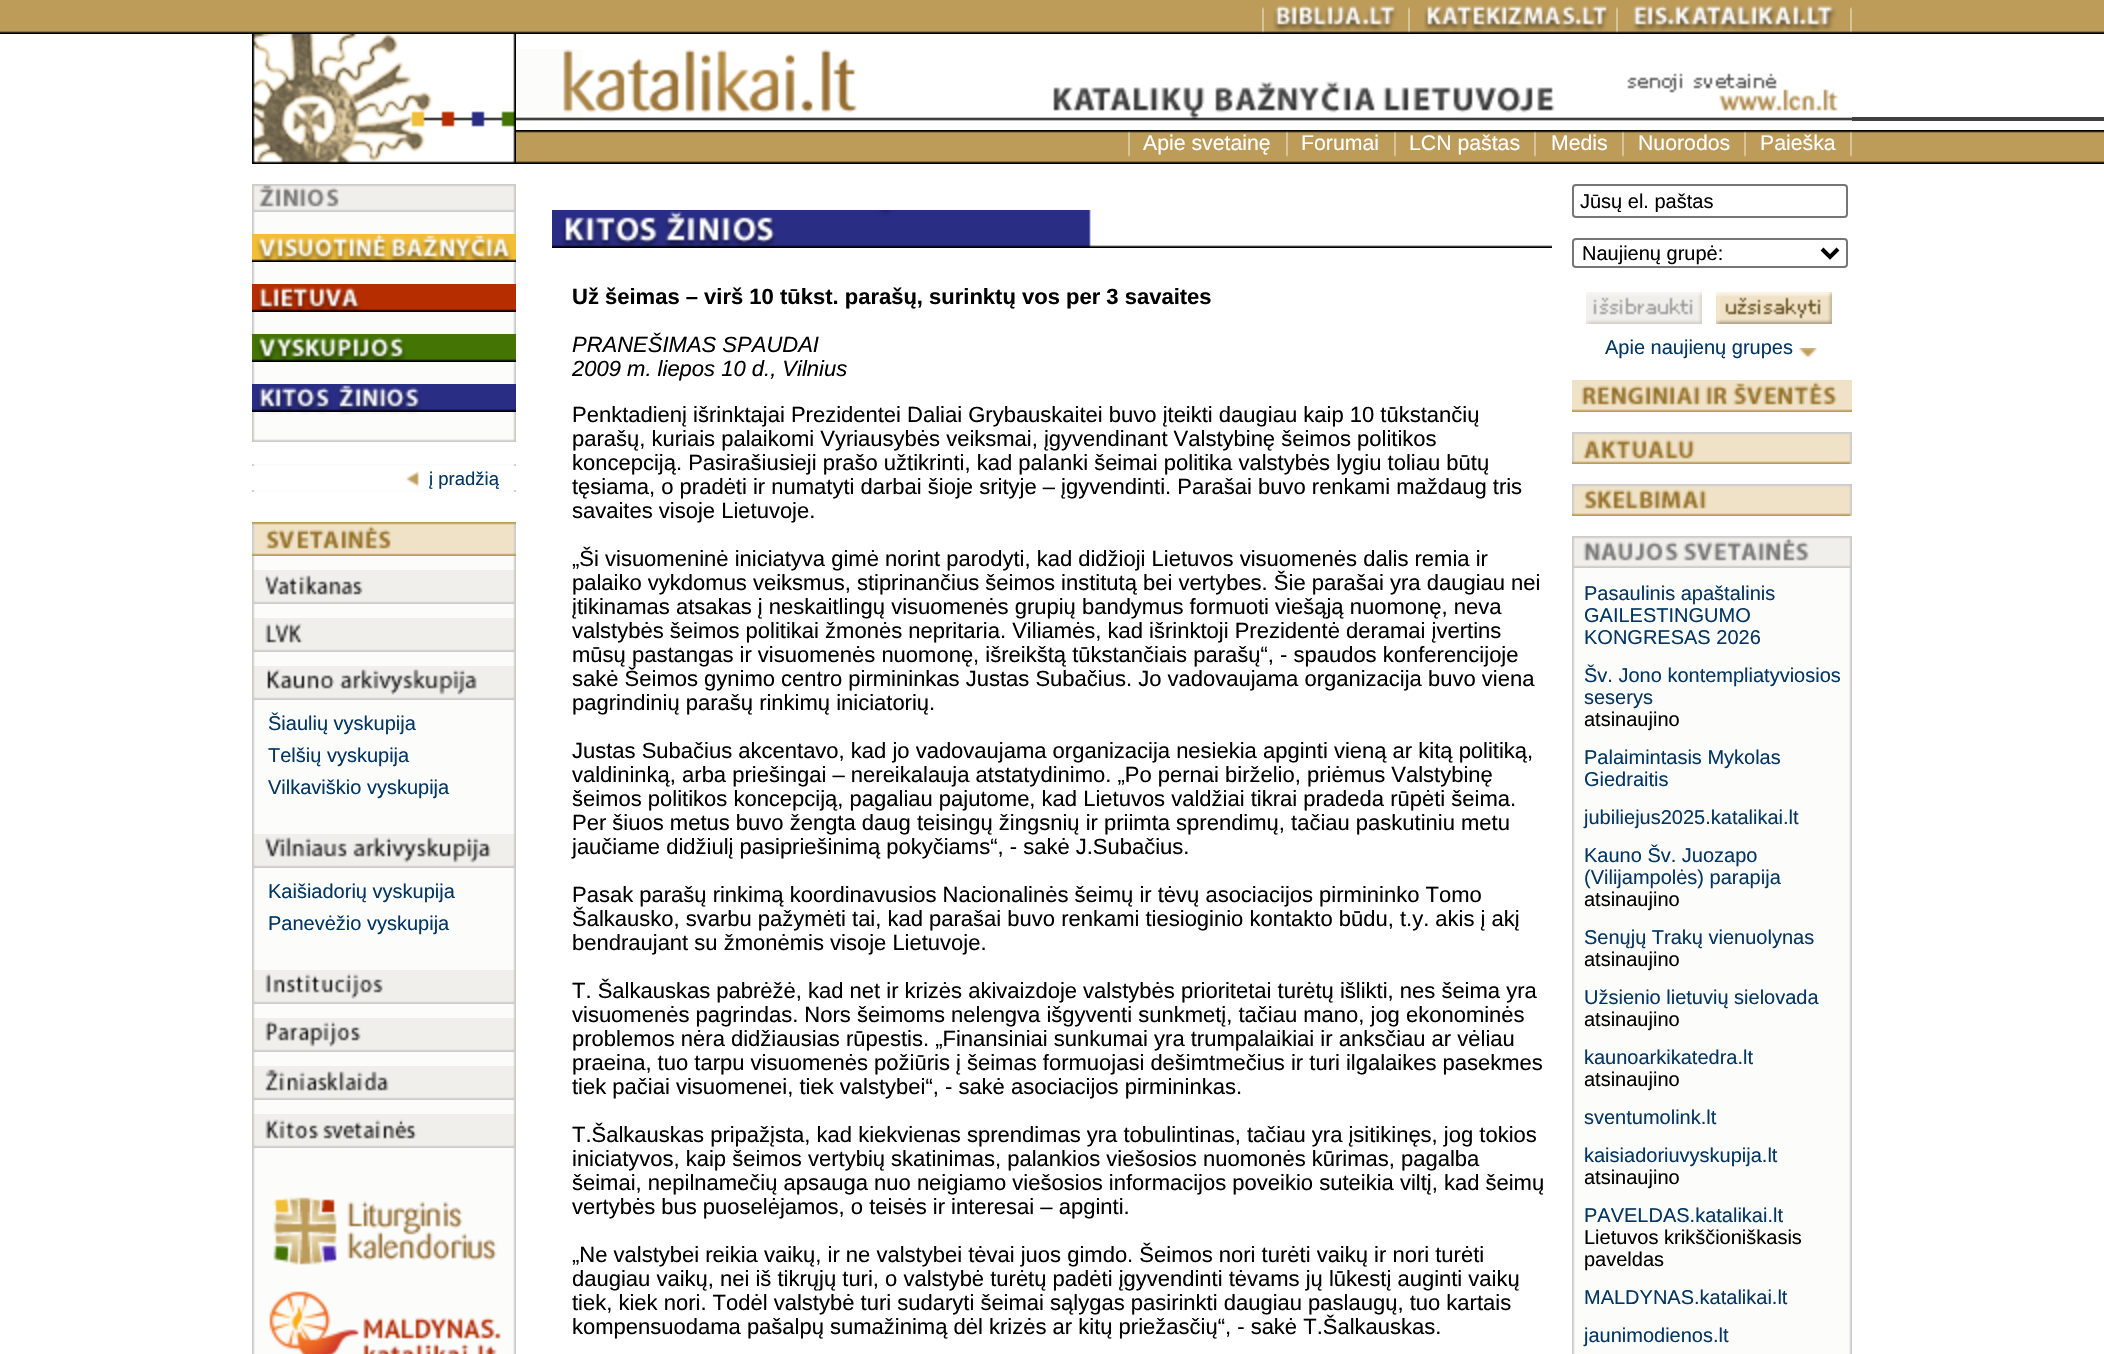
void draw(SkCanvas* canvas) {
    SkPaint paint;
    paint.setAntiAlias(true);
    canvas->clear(0xFFFFFFFF);
    canvas->drawImageRect(SkImages::DeferredFromEncodedData(SkData::MakeFromFileName("img1.png")), SkRect::MakeXYWH(0, 0, 252, 34), SkSamplingOptions());
    canvas->drawImageRect(SkImages::DeferredFromEncodedData(SkData::MakeFromFileName("img2.png")), SkRect::MakeXYWH(252, 0, 264, 34), SkSamplingOptions());
    canvas->drawImageRect(SkImages::DeferredFromEncodedData(SkData::MakeFromFileName("img3.png")), SkRect::MakeXYWH(516, 0, 36, 34), SkSamplingOptions());
    canvas->drawImageRect(SkImages::DeferredFromEncodedData(SkData::MakeFromFileName("img4.png")), SkRect::MakeXYWH(552, 0, 1300, 34), SkSamplingOptions());
    canvas->drawImageRect(SkImages::DeferredFromEncodedData(SkData::MakeFromFileName("img5.png")), SkRect::MakeXYWH(1262, 7, 2, 26), SkSamplingOptions());
    canvas->drawImageRect(SkImages::DeferredFromEncodedData(SkData::MakeFromFileName("img6.png")), SkRect::MakeXYWH(1273, 5, 124, 27), SkSamplingOptions());
    canvas->drawImageRect(SkImages::DeferredFromEncodedData(SkData::MakeFromFileName("img5.png")), SkRect::MakeXYWH(1408, 7, 2, 26), SkSamplingOptions());
    canvas->drawImageRect(SkImages::DeferredFromEncodedData(SkData::MakeFromFileName("img7.png")), SkRect::MakeXYWH(1424, 5, 185, 27), SkSamplingOptions());
    canvas->drawImageRect(SkImages::DeferredFromEncodedData(SkData::MakeFromFileName("img5.png")), SkRect::MakeXYWH(1616, 7, 2, 26), SkSamplingOptions());
    canvas->drawImageRect(SkImages::DeferredFromEncodedData(SkData::MakeFromFileName("img8.png")), SkRect::MakeXYWH(1633, 5, 204, 27), SkSamplingOptions());
    canvas->drawImageRect(SkImages::DeferredFromEncodedData(SkData::MakeFromFileName("img5.png")), SkRect::MakeXYWH(1850, 7, 2, 26), SkSamplingOptions());
    canvas->drawImageRect(SkImages::DeferredFromEncodedData(SkData::MakeFromFileName("img1.png")), SkRect::MakeXYWH(1852, 0, 252, 34), SkSamplingOptions());
    canvas->drawImageRect(SkImages::DeferredFromEncodedData(SkData::MakeFromFileName("img9.png")), SkRect::MakeXYWH(252, 34, 264, 130), SkSamplingOptions());
    canvas->drawImageRect(SkImages::DeferredFromEncodedData(SkData::MakeFromFileName("img10.png")), SkRect::MakeXYWH(516, 49, 1056, 72), SkSamplingOptions());
    canvas->drawImageRect(SkImages::DeferredFromEncodedData(SkData::MakeFromFileName("img11.png")), SkRect::MakeXYWH(1572, 73, 280, 48), SkSamplingOptions());
    paint.setColor(0xFF404040);
    canvas->drawRect(SkRect::MakeXYWH(1852, 117, 252, 4), paint);
    canvas->drawImageRect(SkImages::DeferredFromEncodedData(SkData::MakeFromFileName("img12.png")), SkRect::MakeXYWH(516, 130, 1336, 34), SkSamplingOptions());
    canvas->drawImageRect(SkImages::DeferredFromEncodedData(SkData::MakeFromFileName("img13.png")), SkRect::MakeXYWH(1128, 131, 2, 26), SkSamplingOptions());
    SkFont font1(fontMgr->matchFamilyStyle("Liberation Sans", SkFontStyle::Normal()), 21.25f);
    font1.setSubpixel(true);
    paint.setColor(0xFFFFFFFF);
    canvas->drawString("Apie svetainę", 1143, 150, font1, paint);
    canvas->drawImageRect(SkImages::DeferredFromEncodedData(SkData::MakeFromFileName("img13.png")), SkRect::MakeXYWH(1286, 131, 2, 26), SkSamplingOptions());
    canvas->drawString("Forumai", 1301, 150, font1, paint);
    canvas->drawImageRect(SkImages::DeferredFromEncodedData(SkData::MakeFromFileName("img13.png")), SkRect::MakeXYWH(1394, 131, 2, 26), SkSamplingOptions());
    canvas->drawString("LCN paštas", 1409, 150, font1, paint);
    canvas->drawImageRect(SkImages::DeferredFromEncodedData(SkData::MakeFromFileName("img13.png")), SkRect::MakeXYWH(1534, 131, 2, 26), SkSamplingOptions());
    canvas->drawString("Medis", 1551, 150, font1, paint);
    canvas->drawImageRect(SkImages::DeferredFromEncodedData(SkData::MakeFromFileName("img13.png")), SkRect::MakeXYWH(1622, 131, 2, 26), SkSamplingOptions());
    canvas->drawString("Nuorodos", 1638, 150, font1, paint);
    canvas->drawImageRect(SkImages::DeferredFromEncodedData(SkData::MakeFromFileName("img13.png")), SkRect::MakeXYWH(1744, 131, 2, 26), SkSamplingOptions());
    canvas->drawString("Paieška", 1760, 150, font1, paint);
    canvas->drawImageRect(SkImages::DeferredFromEncodedData(SkData::MakeFromFileName("img13.png")), SkRect::MakeXYWH(1850, 131, 2, 26), SkSamplingOptions());
    canvas->drawImageRect(SkImages::DeferredFromEncodedData(SkData::MakeFromFileName("img14.png")), SkRect::MakeXYWH(1852, 130, 252, 34), SkSamplingOptions());
    canvas->drawImageRect(SkImages::DeferredFromEncodedData(SkData::MakeFromFileName("img15.png")), SkRect::MakeXYWH(252, 184, 264, 1170), SkSamplingOptions());
    canvas->drawImageRect(SkImages::DeferredFromEncodedData(SkData::MakeFromFileName("img16.png")), SkRect::MakeXYWH(253, 184, 262, 28), SkSamplingOptions());
    canvas->drawImageRect(SkImages::DeferredFromEncodedData(SkData::MakeFromFileName("img17.png")), SkRect::MakeXYWH(252, 234, 264, 28), SkSamplingOptions());
    canvas->drawImageRect(SkImages::DeferredFromEncodedData(SkData::MakeFromFileName("img18.png")), SkRect::MakeXYWH(252, 284, 264, 28), SkSamplingOptions());
    canvas->drawImageRect(SkImages::DeferredFromEncodedData(SkData::MakeFromFileName("img19.png")), SkRect::MakeXYWH(252, 334, 264, 28), SkSamplingOptions());
    canvas->drawImageRect(SkImages::DeferredFromEncodedData(SkData::MakeFromFileName("img20.png")), SkRect::MakeXYWH(252, 384, 264, 28), SkSamplingOptions());
    canvas->drawImageRect(SkImages::DeferredFromEncodedData(SkData::MakeFromFileName("img21.png")), SkRect::MakeXYWH(253, 412, 262, 30), SkSamplingOptions());
    canvas->drawRect(SkRect::MakeXYWH(252, 442, 264, 22), paint);
    canvas->drawRect(SkRect::MakeXYWH(252, 466, 264, 24), paint);
    canvas->drawImageRect(SkImages::DeferredFromEncodedData(SkData::MakeFromFileName("img22.png")), SkRect::MakeXYWH(406, 471, 14, 15), SkSamplingOptions());
    SkFont font2(fontMgr->matchFamilyStyle("Liberation Sans", SkFontStyle::Normal()), 18.5f);
    font2.setSubpixel(true);
    paint.setColor(0xFF023561);
    canvas->drawString("į pradžią", 429, 485, font2, paint);
    paint.setColor(0xFFFFFFFF);
    canvas->drawRect(SkRect::MakeXYWH(252, 492, 264, 30), paint);
    canvas->drawImageRect(SkImages::DeferredFromEncodedData(SkData::MakeFromFileName("img23.png")), SkRect::MakeXYWH(252, 522, 264, 34), SkSamplingOptions());
    canvas->drawImageRect(SkImages::DeferredFromEncodedData(SkData::MakeFromFileName("img24.png")), SkRect::MakeXYWH(253, 570, 262, 34), SkSamplingOptions());
    canvas->drawImageRect(SkImages::DeferredFromEncodedData(SkData::MakeFromFileName("img25.png")), SkRect::MakeXYWH(253, 618, 262, 34), SkSamplingOptions());
    canvas->drawImageRect(SkImages::DeferredFromEncodedData(SkData::MakeFromFileName("img26.png")), SkRect::MakeXYWH(253, 666, 262, 34), SkSamplingOptions());
    SkFont font3(fontMgr->matchFamilyStyle("Liberation Sans", SkFontStyle::Normal()), 20);
    font3.setSubpixel(true);
    paint.setColor(0xFF023561);
    canvas->drawString("Šiaulių vyskupija", 268, 730, font3, paint);
    canvas->drawString("Telšių vyskupija", 268, 762, font3, paint);
    canvas->drawString("Vilkaviškio vyskupija", 268, 794, font3, paint);
    canvas->drawImageRect(SkImages::DeferredFromEncodedData(SkData::MakeFromFileName("img27.png")), SkRect::MakeXYWH(253, 834, 262, 34), SkSamplingOptions());
    canvas->drawString("Kaišiadorių vyskupija", 268, 898, font3, paint);
    canvas->drawString("Panevėžio vyskupija", 268, 930, font3, paint);
    canvas->drawImageRect(SkImages::DeferredFromEncodedData(SkData::MakeFromFileName("img28.png")), SkRect::MakeXYWH(253, 970, 262, 34), SkSamplingOptions());
    canvas->drawImageRect(SkImages::DeferredFromEncodedData(SkData::MakeFromFileName("img29.png")), SkRect::MakeXYWH(253, 1018, 262, 34), SkSamplingOptions());
    canvas->drawImageRect(SkImages::DeferredFromEncodedData(SkData::MakeFromFileName("img30.png")), SkRect::MakeXYWH(253, 1066, 262, 34), SkSamplingOptions());
    canvas->drawImageRect(SkImages::DeferredFromEncodedData(SkData::MakeFromFileName("img31.png")), SkRect::MakeXYWH(253, 1114, 262, 34), SkSamplingOptions());
    canvas->drawImageRect(SkImages::DeferredFromEncodedData(SkData::MakeFromFileName("img32.png")), SkRect::MakeXYWH(273, 1197, 224, 68), SkSamplingOptions());
    canvas->drawImageRect(SkImages::DeferredFromEncodedData(SkData::MakeFromFileName("img33.png")), SkRect::MakeXYWH(269, 1291, 232, 63), SkSamplingOptions());
    canvas->drawImageRect(SkImages::DeferredFromEncodedData(SkData::MakeFromFileName("img34.png")), SkRect::MakeXYWH(552, 210, 1000, 38), SkSamplingOptions());
    SkFont font4(fontMgr->matchFamilyStyle("Liberation Sans", SkFontStyle::Bold()), 22);
    font4.setSubpixel(true);
    paint.setColor(0xFF000000);
    canvas->drawString("Už šeimas – virš 10 tūkst. parašų, surinktų vos per 3 savaites", 572, 304, font4, paint);
    SkFont font5(fontMgr->matchFamilyStyle("Liberation Sans", SkFontStyle::Italic()), 22);
    font5.setSubpixel(true);
    canvas->drawString("PRANEŠIMAS SPAUDAI", 572, 352, font5, paint);
    canvas->drawString("2009 m. liepos 10 d., Vilnius", 572, 376, font5, paint);
    SkFont font6(fontMgr->matchFamilyStyle("Liberation Sans", SkFontStyle::Normal()), 22);
    font6.setSubpixel(true);
    canvas->drawString("Penktadienį išrinktajai Prezidentei Daliai Grybauskaitei buvo įteikti daugiau kaip 10 tūkstančių", 572, 422, font6, paint);
    canvas->drawString("parašų, kuriais palaikomi Vyriausybės veiksmai, įgyvendinant Valstybinę šeimos politikos", 572, 446, font6, paint);
    canvas->drawString("koncepciją. Pasirašiusieji prašo užtikrinti, kad palanki šeimai politika valstybės lygiu toliau būtų", 572, 470, font6, paint);
    canvas->drawString("tęsiama, o pradėti ir numatyti darbai šioje srityje – įgyvendinti. Parašai buvo renkami maždaug tris", 572, 494, font6, paint);
    canvas->drawString("savaites visoje Lietuvoje.", 572, 518, font6, paint);
    canvas->drawString("„Ši visuomeninė iniciatyva gimė norint parodyti, kad didžioji Lietuvos visuomenės dalis remia ir", 572, 566, font6, paint);
    canvas->drawString("palaiko vykdomus veiksmus, stiprinančius šeimos institutą bei vertybes. Šie parašai yra daugiau nei", 572, 590, font6, paint);
    canvas->drawString("įtikinamas atsakas į neskaitlingų visuomenės grupių bandymus formuoti viešąją nuomonę, neva", 572, 614, font6, paint);
    canvas->drawString("valstybės šeimos politikai žmonės nepritaria. Viliamės, kad išrinktoji Prezidentė deramai įvertins", 572, 638, font6, paint);
    canvas->drawString("mūsų pastangas ir visuomenės nuomonę, išreikštą tūkstančiais parašų“, - spaudos konferencijoje", 572, 662, font6, paint);
    canvas->drawString("sakė Šeimos gynimo centro pirmininkas Justas Subačius. Jo vadovaujama organizacija buvo viena", 572, 686, font6, paint);
    canvas->drawString("pagrindinių parašų rinkimų iniciatorių.", 572, 710, font6, paint);
    canvas->drawString("Justas Subačius akcentavo, kad jo vadovaujama organizacija nesiekia apginti vieną ar kitą politiką,", 572, 758, font6, paint);
    canvas->drawString("valdininką, arba priešingai – nereikalauja atstatydinimo. „Po pernai birželio, priėmus Valstybinę", 572, 782, font6, paint);
    canvas->drawString("šeimos politikos koncepciją, pagaliau pajutome, kad Lietuvos valdžiai tikrai pradeda rūpėti šeima.", 572, 806, font6, paint);
    canvas->drawString("Per šiuos metus buvo žengta daug teisingų žingsnių ir priimta sprendimų, tačiau paskutiniu metu", 572, 830, font6, paint);
    canvas->drawString("jaučiame didžiulį pasipriešinimą pokyčiams“, - sakė J.Subačius.", 572, 854, font6, paint);
    canvas->drawString("Pasak parašų rinkimą koordinavusios Nacionalinės šeimų ir tėvų asociacijos pirmininko Tomo", 572, 902, font6, paint);
    canvas->drawString("Šalkausko, svarbu pažymėti tai, kad parašai buvo renkami tiesioginio kontakto būdu, t.y. akis į akį", 572, 926, font6, paint);
    canvas->drawString("bendraujant su žmonėmis visoje Lietuvoje.", 572, 950, font6, paint);
    canvas->drawString("T. Šalkauskas pabrėžė, kad net ir krizės akivaizdoje valstybės prioritetai turėtų išlikti, nes šeima yra", 572, 998, font6, paint);
    canvas->drawString("visuomenės pagrindas. Nors šeimoms nelengva išgyventi sunkmetį, tačiau mano, jog ekonominės", 572, 1022, font6, paint);
    canvas->drawString("problemos nėra didžiausias rūpestis. „Finansiniai sunkumai yra trumpalaikiai ir anksčiau ar vėliau", 572, 1046, font6, paint);
    canvas->drawString("praeina, tuo tarpu visuomenės požiūris į šeimas formuojasi dešimtmečius ir turi ilgalaikes pasekmes", 572, 1070, font6, paint);
    canvas->drawString("tiek pačiai visuomenei, tiek valstybei“, - sakė asociacijos pirmininkas.", 572, 1094, font6, paint);
    canvas->drawString("T.Šalkauskas pripažįsta, kad kiekvienas sprendimas yra tobulintinas, tačiau yra įsitikinęs, jog tokios", 572, 1142, font6, paint);
    canvas->drawString("iniciatyvos, kaip šeimos vertybių skatinimas, palankios viešosios nuomonės kūrimas, pagalba", 572, 1166, font6, paint);
    canvas->drawString("šeimai, nepilnamečių apsauga nuo neigiamo viešosios informacijos poveikio suteikia viltį, kad šeimų", 572, 1190, font6, paint);
    canvas->drawString("vertybės bus puoselėjamos, o teisės ir interesai – apginti.", 572, 1214, font6, paint);
    canvas->drawString("„Ne valstybei reikia vaikų, ir ne valstybei tėvai juos gimdo. Šeimos nori turėti vaikų ir nori turėti", 572, 1262, font6, paint);
    canvas->drawString("daugiau vaikų, nei iš tikrųjų turi, o valstybė turėtų padėti įgyvendinti tėvams jų lūkestį auginti vaikų", 572, 1286, font6, paint);
    canvas->drawString("tiek, kiek nori. Todėl valstybė turi sudaryti šeimai sąlygas pasirinkti daugiau paslaugų, tuo kartais", 572, 1310, font6, paint);
    canvas->drawString("kompensuodama pašalpų sumažinimą dėl krizės ar kitų priežasčių“, - sakė T.Šalkauskas.", 572, 1334, font6, paint);
    paint.setStyle(SkPaint::kStroke_Style);
    paint.setStrokeWidth(2);
    paint.setColor(0xFF767676);
    canvas->drawRoundRect(SkRect::MakeXYWH(1573, 185, 274, 32), 3, 3, paint);
    canvas->save();
    canvas->clipRect(SkRect::MakeXYWH(1580, 190, 260, 22));
    paint.setStyle(SkPaint::kFill_Style);
    paint.setColor(0xFF000000);
    canvas->drawString("Jūsų el. paštas", 1580, 208, font3, paint);
    canvas->restore();
    paint.setStyle(SkPaint::kStroke_Style);
    paint.setColor(0xFF767676);
    canvas->drawRoundRect(SkRect::MakeXYWH(1573, 239, 274, 28), 3, 3, paint);
    paint.setStrokeWidth(4);
    paint.setColor(0xFF000000);
    canvas->drawPath(SkPathBuilder().moveTo(1822, 249).lineTo(1830, 257).lineTo(1838, 249).detach(), paint);
    paint.setStyle(SkPaint::kFill_Style);
    canvas->drawString("Naujienų grupė:", 1582, 260, font3, paint);
    canvas->drawImageRect(SkImages::DeferredFromEncodedData(SkData::MakeFromFileName("img35.png")), SkRect::MakeXYWH(1586, 292, 116, 32), SkSamplingOptions());
    canvas->drawImageRect(SkImages::DeferredFromEncodedData(SkData::MakeFromFileName("img36.png")), SkRect::MakeXYWH(1716, 292, 116, 32), SkSamplingOptions());
    paint.setColor(0xFF023561);
    canvas->drawString("Apie naujienų grupes", 1605, 354, font3, paint);
    canvas->drawImageRect(SkImages::DeferredFromEncodedData(SkData::MakeFromFileName("img37.png")), SkRect::MakeXYWH(1798, 348, 20, 11), SkSamplingOptions());
    canvas->drawImageRect(SkImages::DeferredFromEncodedData(SkData::MakeFromFileName("img38.png")), SkRect::MakeXYWH(1572, 380, 280, 32), SkSamplingOptions());
    canvas->drawImageRect(SkImages::DeferredFromEncodedData(SkData::MakeFromFileName("img39.png")), SkRect::MakeXYWH(1572, 432, 280, 32), SkSamplingOptions());
    canvas->drawImageRect(SkImages::DeferredFromEncodedData(SkData::MakeFromFileName("img40.png")), SkRect::MakeXYWH(1572, 484, 280, 32), SkSamplingOptions());
    canvas->drawImageRect(SkImages::DeferredFromEncodedData(SkData::MakeFromFileName("img41.png")), SkRect::MakeXYWH(1572, 536, 280, 32), SkSamplingOptions());
    canvas->drawImageRect(SkImages::DeferredFromEncodedData(SkData::MakeFromFileName("img42.png")), SkRect::MakeXYWH(1572, 568, 280, 786), SkSamplingOptions());
    canvas->drawString("Pasaulinis apaštalinis", 1584, 600, font3, paint);
    canvas->drawString("GAILESTINGUMO", 1584, 622, font3, paint);
    canvas->drawString("KONGRESAS 2026", 1584, 644, font3, paint);
    canvas->drawString("Šv. Jono kontempliatyviosios", 1584, 682, font3, paint);
    canvas->drawString("seserys", 1584, 704, font3, paint);
    paint.setColor(0xFF000000);
    canvas->drawString("atsinaujino", 1584, 726, font3, paint);
    paint.setColor(0xFF023561);
    canvas->drawString("Palaimintasis Mykolas", 1584, 764, font3, paint);
    canvas->drawString("Giedraitis", 1584, 786, font3, paint);
    canvas->drawString("jubiliejus2025.katalikai.lt", 1584, 824, font3, paint);
    canvas->drawString("Kauno Šv. Juozapo", 1584, 862, font3, paint);
    canvas->drawString("(Vilijampolės) parapija", 1584, 884, font3, paint);
    paint.setColor(0xFF000000);
    canvas->drawString("atsinaujino", 1584, 906, font3, paint);
    paint.setColor(0xFF023561);
    canvas->drawString("Senųjų Trakų vienuolynas", 1584, 944, font3, paint);
    paint.setColor(0xFF000000);
    canvas->drawString("atsinaujino", 1584, 966, font3, paint);
    paint.setColor(0xFF023561);
    canvas->drawString("Užsienio lietuvių sielovada", 1584, 1004, font3, paint);
    paint.setColor(0xFF000000);
    canvas->drawString("atsinaujino", 1584, 1026, font3, paint);
    paint.setColor(0xFF023561);
    canvas->drawString("kaunoarkikatedra.lt", 1584, 1064, font3, paint);
    paint.setColor(0xFF000000);
    canvas->drawString("atsinaujino", 1584, 1086, font3, paint);
    paint.setColor(0xFF023561);
    canvas->drawString("sventumolink.lt", 1584, 1124, font3, paint);
    canvas->drawString("kaisiadoriuvyskupija.lt", 1584, 1162, font3, paint);
    paint.setColor(0xFF000000);
    canvas->drawString("atsinaujino", 1584, 1184, font3, paint);
    paint.setColor(0xFF023561);
    canvas->drawString("PAVELDAS.katalikai.lt", 1584, 1222, font3, paint);
    paint.setColor(0xFF000000);
    canvas->drawString("Lietuvos krikščioniškasis", 1584, 1244, font3, paint);
    canvas->drawString("paveldas", 1584, 1266, font3, paint);
    paint.setColor(0xFF023561);
    canvas->drawString("MALDYNAS.katalikai.lt", 1584, 1304, font3, paint);
    canvas->drawString("jaunimodienos.lt", 1584, 1342, font3, paint);
}
